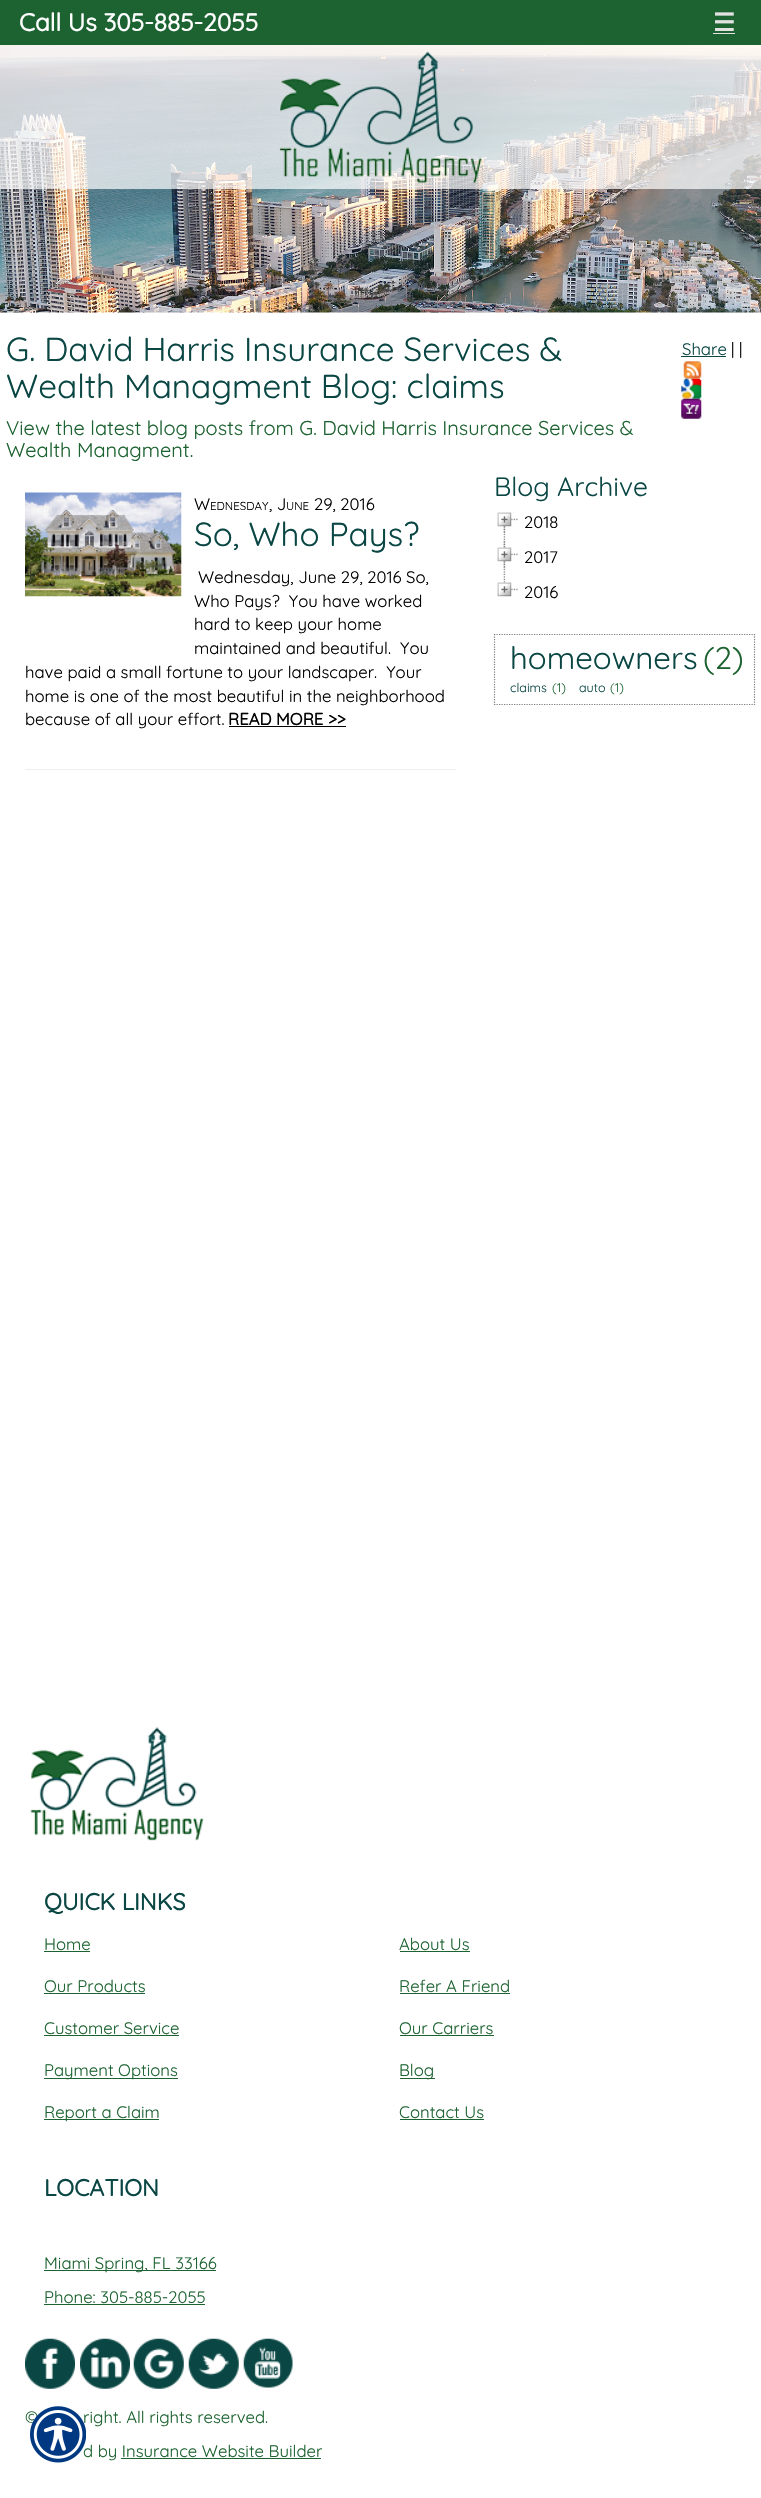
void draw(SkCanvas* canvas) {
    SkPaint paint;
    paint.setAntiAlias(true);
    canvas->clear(0xFFFFFFFF);
    canvas->drawImageRect(SkImages::DeferredFromEncodedData(SkData::MakeFromFileName("img2.png")), SkRect::MakeXYWH(0, 45, 761, 268), SkSamplingOptions());
    paint.setColor(0xB3FFFFFF);
    canvas->drawRect(SkRect::MakeXYWH(0, 45, 761, 144), paint);
    paint.setColor(0xFF1D6331);
    canvas->drawRect(SkRect::MakeXYWH(0, 0, 761, 45), paint);
    SkFont font1(fontMgr->matchFamilyStyle("Quicksand", SkFontStyle::Bold()), 24.5f);
    font1.setSubpixel(true);
    paint.setColor(0xFFFFFFFF);
    canvas->drawString("Call Us 305-885-2055", 19, 31, font1, paint);
    SkFont font2(fontMgr->matchFamilyStyle("DejaVu Sans", SkFontStyle::Bold()), 24.5f);
    font2.setSubpixel(true);
    paint.setColor(0xFFE2E2E2);
    canvas->drawString("☰", 713, 31, font2, paint);
    canvas->drawRect(SkRect::MakeXYWH(713, 33, 22, 1), paint);
    canvas->drawImageRect(SkImages::DeferredFromEncodedData(SkData::MakeFromFileName("img1.png")), SkRect::MakeXYWH(279, 51, 204, 132), SkSamplingOptions());
    SkFont font3(fontMgr->matchFamilyStyle("Quicksand", SkFontStyle(300, SkFontStyle::kNormal_Width, SkFontStyle::kUpright_Slant)), 33.3f);
    font3.setSubpixel(true);
    paint.setColor(0xFF0A4744);
    canvas->drawString("G. David Harris Insurance Services &", 6, 361, font3, paint);
    canvas->drawString("Wealth Managment Blog: claims", 6, 398, font3, paint);
    SkFont font4(fontMgr->matchFamilyStyle("Quicksand", SkFontStyle(300, SkFontStyle::kNormal_Width, SkFontStyle::kUpright_Slant)), 16.7f);
    font4.setSubpixel(true);
    canvas->drawString("Share", 682, 355, font4, paint);
    canvas->drawRect(SkRect::MakeXYWH(681, 356, 45, 1), paint);
    paint.setColor(0xFF000000);
    canvas->drawString("| |", 731, 355, font4, paint);
    canvas->drawImageRect(SkImages::DeferredFromEncodedData(SkData::MakeFromFileName("img3.png")), SkRect::MakeXYWH(683, 361, 19, 18), SkSamplingOptions());
    canvas->drawImageRect(SkImages::DeferredFromEncodedData(SkData::MakeFromFileName("img4.png")), SkRect::MakeXYWH(681, 378, 21, 21), SkSamplingOptions());
    canvas->drawImageRect(SkImages::DeferredFromEncodedData(SkData::MakeFromFileName("img5.png")), SkRect::MakeXYWH(681, 398, 21, 21), SkSamplingOptions());
    SkFont font5(fontMgr->matchFamilyStyle("Quicksand", SkFontStyle(300, SkFontStyle::kNormal_Width, SkFontStyle::kUpright_Slant)), 20);
    font5.setSubpixel(true);
    paint.setColor(0xFF1D6331);
    canvas->drawString("View the latest blog posts from G. David Harris Insurance Services &", 6, 435, font5, paint);
    canvas->drawString("Wealth Managment.", 6, 457, font5, paint);
    canvas->drawImageRect(SkImages::DeferredFromEncodedData(SkData::MakeFromFileName("img6.png")), SkRect::MakeXYWH(25, 492, 157, 105), SkSamplingOptions());
    paint.setColor(0xFF000000);
    canvas->drawString("W", 194, 510, font4, paint);
    SkFont font6(fontMgr->matchFamilyStyle("Quicksand", SkFontStyle(300, SkFontStyle::kNormal_Width, SkFontStyle::kUpright_Slant)), 11.5f);
    font6.setSubpixel(true);
    canvas->drawString("EDNESDAY", 210, 510, font6, paint);
    canvas->drawString(", J", 269, 510, font4, paint);
    canvas->drawString("UNE", 286, 510, font6, paint);
    canvas->drawString("29, 2016", 314, 510, font4, paint);
    paint.setColor(0xFF0A4744);
    canvas->drawString("So, Who Pays?", 194, 546, font3, paint);
    paint.setColor(0xFF000000);
    canvas->drawString("Wednesday, June 29, 2016 So,", 198, 583, font4, paint);
    canvas->drawString("Who Pays?  You have worked", 194, 607, font4, paint);
    canvas->drawString("hard to keep your home", 194, 630, font4, paint);
    canvas->drawString("maintained and beautiful.  You", 194, 654, font4, paint);
    canvas->drawString("have paid a small fortune to your landscaper.  Your", 25, 678, font4, paint);
    canvas->drawString("home is one of the most beautiful in the neighborhood", 25, 702, font4, paint);
    canvas->drawString("because of all your effort.", 25, 725, font4, paint);
    SkFont font7(fontMgr->matchFamilyStyle("Quicksand", SkFontStyle::Bold()), 16.7f);
    font7.setSubpixel(true);
    canvas->drawString("READ MORE >>", 228, 725, font7, paint);
    canvas->drawRect(SkRect::MakeXYWH(229, 726, 117, 1), paint);
    paint.setColor(0xFFEEEEEE);
    canvas->drawRect(SkRect::MakeXYWH(25, 769, 431, 1), paint);
    SkFont font8(fontMgr->matchFamilyStyle("Quicksand", SkFontStyle(300, SkFontStyle::kNormal_Width, SkFontStyle::kUpright_Slant)), 26.5f);
    font8.setSubpixel(true);
    paint.setColor(0xFF0A4744);
    canvas->drawString("Blog Archive", 494, 496, font8, paint);
    canvas->drawImageRect(SkImages::DeferredFromEncodedData(SkData::MakeFromFileName("img7.png")), SkRect::MakeXYWH(503, 526, 3, 14), SkSamplingOptions());
    canvas->drawImageRect(SkImages::DeferredFromEncodedData(SkData::MakeFromFileName("img8.png")), SkRect::MakeXYWH(503, 518, 15, 15), SkSamplingOptions());
    canvas->drawImageRect(SkImages::DeferredFromEncodedData(SkData::MakeFromFileName("img9.png")), SkRect::MakeXYWH(497, 512, 15, 15), SkSamplingOptions());
    paint.setColor(0xFF000000);
    canvas->drawString("2018", 524, 528, font4, paint);
    canvas->drawImageRect(SkImages::DeferredFromEncodedData(SkData::MakeFromFileName("img10.png")), SkRect::MakeXYWH(503, 540, 3, 35), SkSamplingOptions());
    canvas->drawImageRect(SkImages::DeferredFromEncodedData(SkData::MakeFromFileName("img11.png")), SkRect::MakeXYWH(503, 541, 15, 27), SkSamplingOptions());
    canvas->drawImageRect(SkImages::DeferredFromEncodedData(SkData::MakeFromFileName("img12.png")), SkRect::MakeXYWH(497, 547, 15, 15), SkSamplingOptions());
    canvas->drawString("2017", 524, 563, font4, paint);
    canvas->drawImageRect(SkImages::DeferredFromEncodedData(SkData::MakeFromFileName("img13.png")), SkRect::MakeXYWH(503, 576, 15, 15), SkSamplingOptions());
    canvas->drawImageRect(SkImages::DeferredFromEncodedData(SkData::MakeFromFileName("img14.png")), SkRect::MakeXYWH(497, 582, 15, 15), SkSamplingOptions());
    canvas->drawString("2016", 524, 598, font4, paint);
    paint.setStyle(SkPaint::kStroke_Style);
    paint.setStrokeWidth(1.2f);
    paint.setColor(0xFF7F7F7F);
    paint.setPathEffect(SkDashPathEffect::Make({{1.25f, 1.25f}}, 0));
    canvas->drawPath(SkPathBuilder().moveTo(494, 634.5f).lineTo(755, 634.5f).detach(), paint);
    paint.setPathEffect(nullptr);
    paint.setPathEffect(SkDashPathEffect::Make({{1.25f, 1.25f}}, 0));
    canvas->drawPath(SkPathBuilder().moveTo(754.5f, 634).lineTo(754.5f, 705).detach(), paint);
    paint.setPathEffect(nullptr);
    paint.setPathEffect(SkDashPathEffect::Make({{1.25f, 1.25f}}, 0));
    canvas->drawPath(SkPathBuilder().moveTo(494, 704.5f).lineTo(755, 704.5f).detach(), paint);
    paint.setPathEffect(nullptr);
    paint.setPathEffect(SkDashPathEffect::Make({{1.25f, 1.25f}}, 0));
    canvas->drawPath(SkPathBuilder().moveTo(494.5f, 634).lineTo(494.5f, 705).detach(), paint);
    paint.setPathEffect(nullptr);
    SkFont font9(fontMgr->matchFamilyStyle("Quicksand", SkFontStyle(300, SkFontStyle::kNormal_Width, SkFontStyle::kUpright_Slant)), 31.25f);
    font9.setSubpixel(true);
    paint.setStyle(SkPaint::kFill_Style);
    paint.setColor(0xFF0A4744);
    canvas->drawString("homeowners", 510, 669, font9, paint);
    paint.setColor(0xFF1D6331);
    canvas->drawString("(2)", 703, 669, font9, paint);
    SkFont font10(fontMgr->matchFamilyStyle("Quicksand", SkFontStyle(300, SkFontStyle::kNormal_Width, SkFontStyle::kUpright_Slant)), 12.5f);
    font10.setSubpixel(true);
    paint.setColor(0xFF0A4744);
    canvas->drawString("claims", 510, 692, font10, paint);
    paint.setColor(0xFF1D6331);
    canvas->drawString("(1)", 552, 692, font10, paint);
    paint.setColor(0xFF0A4744);
    canvas->drawString("auto", 579, 692, font10, paint);
    paint.setColor(0xFF1D6331);
    canvas->drawString("(1)", 610, 692, font10, paint);
    canvas->drawImageRect(SkImages::DeferredFromEncodedData(SkData::MakeFromFileName("img15.png")), SkRect::MakeXYWH(30, 1727, 174, 114), SkSamplingOptions());
    SkFont font11(fontMgr->matchFamilyStyle("Quicksand", SkFontStyle::Bold()), 23.25f);
    font11.setSubpixel(true);
    paint.setColor(0xFF0A4744);
    canvas->drawString("QUICK LINKS", 44, 1910, font11, paint);
    paint.setColor(0xFF1D6331);
    canvas->drawString("Home", 44, 1950, font4, paint);
    canvas->drawRect(SkRect::MakeXYWH(44, 1951, 46, 1), paint);
    canvas->drawString("Our Products", 44, 1992, font4, paint);
    canvas->drawRect(SkRect::MakeXYWH(44, 1993, 101, 1), paint);
    canvas->drawString("Customer Service", 44, 2034, font4, paint);
    canvas->drawRect(SkRect::MakeXYWH(44, 2035, 135, 1), paint);
    canvas->drawRect(SkRect::MakeXYWH(44, 2078, 134, 1), paint);
    canvas->drawString("Payment Options", 44, 2076, font4, paint);
    canvas->drawRect(SkRect::MakeXYWH(44, 2119, 115, 1), paint);
    canvas->drawString("Report a Claim", 44, 2118, font4, paint);
    canvas->drawString("About Us", 399, 1950, font4, paint);
    canvas->drawRect(SkRect::MakeXYWH(400, 1951, 70, 1), paint);
    canvas->drawString("Refer A Friend", 399, 1992, font4, paint);
    canvas->drawRect(SkRect::MakeXYWH(400, 1993, 110, 1), paint);
    canvas->drawString("Our Carriers", 399, 2034, font4, paint);
    canvas->drawRect(SkRect::MakeXYWH(400, 2035, 94, 1), paint);
    canvas->drawRect(SkRect::MakeXYWH(400, 2078, 35, 1), paint);
    canvas->drawString("Blog", 399, 2076, font4, paint);
    canvas->drawString("Contact Us", 399, 2118, font4, paint);
    canvas->drawRect(SkRect::MakeXYWH(400, 2119, 84, 1), paint);
    paint.setColor(0xFF0A4744);
    canvas->drawString("LOCATION", 44, 2196, font11, paint);
    paint.setColor(0xFF1D6331);
    canvas->drawRect(SkRect::MakeXYWH(44, 2270, 172, 1), paint);
    canvas->drawString("Miami Spring, FL 33166", 44, 2269, font4, paint);
    canvas->drawString("Phone: 305-885-2055", 44, 2303, font4, paint);
    canvas->drawRect(SkRect::MakeXYWH(44, 2304, 161, 1), paint);
    canvas->drawImageRect(SkImages::DeferredFromEncodedData(SkData::MakeFromFileName("img16.png")), SkRect::MakeXYWH(25, 2338, 50, 51), SkSamplingOptions());
    canvas->drawImageRect(SkImages::DeferredFromEncodedData(SkData::MakeFromFileName("img17.png")), SkRect::MakeXYWH(80, 2338, 50, 51), SkSamplingOptions());
    canvas->drawImageRect(SkImages::DeferredFromEncodedData(SkData::MakeFromFileName("img18.png")), SkRect::MakeXYWH(133, 2338, 51, 51), SkSamplingOptions());
    canvas->drawImageRect(SkImages::DeferredFromEncodedData(SkData::MakeFromFileName("img19.png")), SkRect::MakeXYWH(188, 2338, 51, 51), SkSamplingOptions());
    canvas->drawImageRect(SkImages::DeferredFromEncodedData(SkData::MakeFromFileName("img20.png")), SkRect::MakeXYWH(243, 2338, 50, 50), SkSamplingOptions());
    canvas->drawString("©", 25, 2423, font4, paint);
    canvas->drawString("right. All rights reserved.", 83, 2423, font4, paint);
    canvas->drawString("d by Insurance Website Builder", 83, 2457, font4, paint);
    canvas->drawRect(SkRect::MakeXYWH(121, 2458, 200, 1), paint);
    canvas->drawImageRect(SkImages::DeferredFromEncodedData(SkData::MakeFromFileName("img21.png")), SkRect::MakeXYWH(30, 2406, 56, 57), SkSamplingOptions());
}
